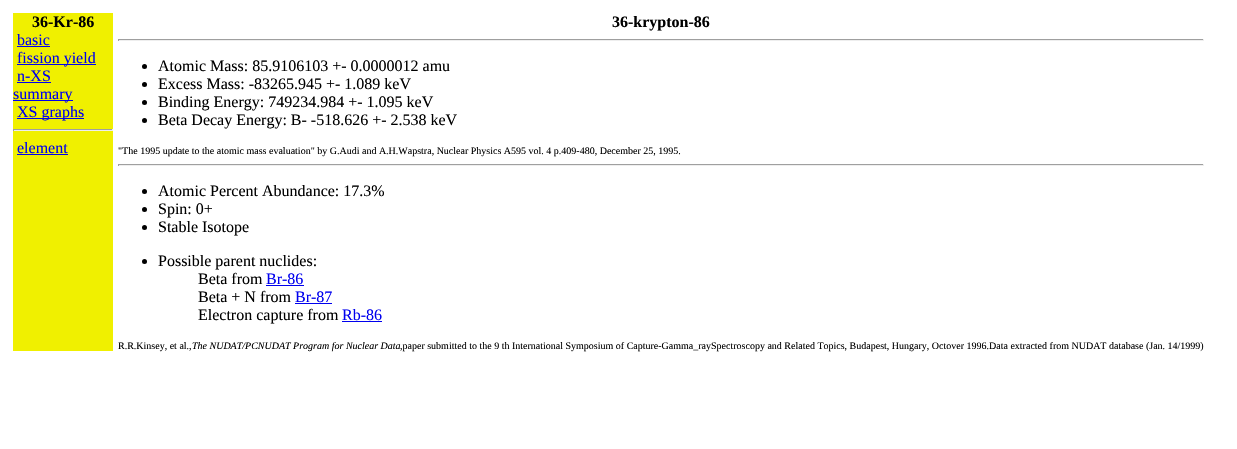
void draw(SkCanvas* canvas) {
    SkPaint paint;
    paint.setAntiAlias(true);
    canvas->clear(0xFFFFFFFF);
    paint.setColor(0xFFF0F000);
    canvas->drawRect(SkRect::MakeXYWH(13, 13, 100, 338), paint);
    SkFont font1(fontMgr->matchFamilyStyle("Liberation Serif", SkFontStyle::Bold()), 16);
    font1.setSubpixel(true);
    paint.setColor(0xFF000000);
    canvas->drawString("36-Kr-86", 32, 27, font1, paint);
    SkFont font2(fontMgr->matchFamilyStyle("Liberation Serif", SkFontStyle::Normal()), 16);
    font2.setSubpixel(true);
    paint.setColor(0xFF0000EE);
    canvas->drawString("basic", 17, 45, font2, paint);
    canvas->drawRect(SkRect::MakeXYWH(17, 46, 33, 1), paint);
    canvas->drawRect(SkRect::MakeXYWH(17, 64, 79, 1), paint);
    canvas->drawString("fission yield", 17, 63, font2, paint);
    canvas->drawString("n-XS", 17, 81, font2, paint);
    canvas->drawRect(SkRect::MakeXYWH(17, 82, 34, 1), paint);
    canvas->drawRect(SkRect::MakeXYWH(13, 100, 60, 1), paint);
    canvas->drawString("summary", 13, 99, font2, paint);
    canvas->drawRect(SkRect::MakeXYWH(17, 118, 67, 1), paint);
    canvas->drawString("XS graphs", 17, 117, font2, paint);
    paint.setColor(0xFF9F9F9F);
    canvas->drawRect(SkRect::MakeXYWH(13, 129, 100, 1), paint);
    paint.setColor(0xFFEEEEEE);
    canvas->drawRect(SkRect::MakeXYWH(112, 129, 1, 2), paint);
    canvas->drawRect(SkRect::MakeXYWH(13, 130, 100, 1), paint);
    paint.setColor(0xFF9F9F9F);
    canvas->drawRect(SkRect::MakeXYWH(13, 129, 1, 2), paint);
    paint.setColor(0xFF0000EE);
    canvas->drawString("element", 17, 153, font2, paint);
    canvas->drawRect(SkRect::MakeXYWH(17, 154, 51, 1), paint);
    paint.setColor(0xFF000000);
    canvas->drawString("36-krypton-86", 612, 27, font1, paint);
    paint.setColor(0xFF9F9F9F);
    canvas->drawRect(SkRect::MakeXYWH(118, 39, 1086, 1), paint);
    paint.setColor(0xFFEEEEEE);
    canvas->drawRect(SkRect::MakeXYWH(1203, 39, 1, 2), paint);
    canvas->drawRect(SkRect::MakeXYWH(118, 40, 1086, 1), paint);
    paint.setColor(0xFF9F9F9F);
    canvas->drawRect(SkRect::MakeXYWH(118, 39, 1, 2), paint);
    paint.setColor(0xFF000000);
    canvas->drawCircle(144.5f, 66.5f, 2.5f, paint);
    canvas->drawString("Atomic Mass: 85.9106103 +- 0.0000012 amu", 158, 71, font2, paint);
    canvas->drawCircle(144.5f, 84.5f, 2.5f, paint);
    canvas->drawString("Excess Mass: -83265.945 +- 1.089 keV", 158, 89, font2, paint);
    canvas->drawCircle(144.5f, 102.5f, 2.5f, paint);
    canvas->drawString("Binding Energy: 749234.984 +- 1.095 keV", 158, 107, font2, paint);
    canvas->drawCircle(144.5f, 120.5f, 2.5f, paint);
    canvas->drawString("Beta Decay Energy: B- -518.626 +- 2.538 keV", 158, 125, font2, paint);
    SkFont font3(fontMgr->matchFamilyStyle("Liberation Serif", SkFontStyle::Normal()), 10);
    font3.setSubpixel(true);
    canvas->drawString("\"The 1995 update to the atomic mass evaluation\" by G.Audi and A.H.Wapstra, Nuclear Physics A595 vol. 4 p.409-480, December 25, 1995.", 118, 154, font3, paint);
    paint.setColor(0xFF9F9F9F);
    canvas->drawRect(SkRect::MakeXYWH(118, 164, 1086, 1), paint);
    paint.setColor(0xFFEEEEEE);
    canvas->drawRect(SkRect::MakeXYWH(1203, 164, 1, 2), paint);
    canvas->drawRect(SkRect::MakeXYWH(118, 165, 1086, 1), paint);
    paint.setColor(0xFF9F9F9F);
    canvas->drawRect(SkRect::MakeXYWH(118, 164, 1, 2), paint);
    paint.setColor(0xFF000000);
    canvas->drawCircle(144.5f, 191.5f, 2.5f, paint);
    canvas->drawString("Atomic Percent Abundance: 17.3%", 158, 196, font2, paint);
    canvas->drawCircle(144.5f, 209.5f, 2.5f, paint);
    canvas->drawString("Spin: 0+", 158, 214, font2, paint);
    canvas->drawCircle(144.5f, 227.5f, 2.5f, paint);
    canvas->drawString("Stable Isotope", 158, 232, font2, paint);
    canvas->drawCircle(144.5f, 261.5f, 2.5f, paint);
    canvas->drawString("Possible parent nuclides:", 158, 266, font2, paint);
    canvas->drawString("Beta from", 198, 284, font2, paint);
    paint.setColor(0xFF0000EE);
    canvas->drawString("Br-86", 266, 284, font2, paint);
    canvas->drawRect(SkRect::MakeXYWH(266, 285, 38, 1), paint);
    paint.setColor(0xFF000000);
    canvas->drawString("Beta + N from", 198, 302, font2, paint);
    paint.setColor(0xFF0000EE);
    canvas->drawString("Br-87", 295, 302, font2, paint);
    canvas->drawRect(SkRect::MakeXYWH(295, 303, 37, 1), paint);
    paint.setColor(0xFF000000);
    canvas->drawString("Electron capture from", 198, 320, font2, paint);
    paint.setColor(0xFF0000EE);
    canvas->drawString("Rb-86", 342, 320, font2, paint);
    canvas->drawRect(SkRect::MakeXYWH(342, 321, 40, 1), paint);
    paint.setColor(0xFF000000);
    canvas->drawString("R.R.Kinsey, et al.,", 118, 349, font3, paint);
    SkFont font4(fontMgr->matchFamilyStyle("Liberation Serif", SkFontStyle::Italic()), 10);
    font4.setSubpixel(true);
    canvas->drawString("The NUDAT/PCNUDAT Program for Nuclear Data", 192, 349, font4, paint);
    canvas->drawString(",paper submitted to the 9 th International Symposium of Capture-Gamma_raySpectroscopy and Related Topics, Budapest, Hungary, Octover 1996.Data extracted from NUDAT database (Jan. 14/1999)", 400, 349, font3, paint);
}
